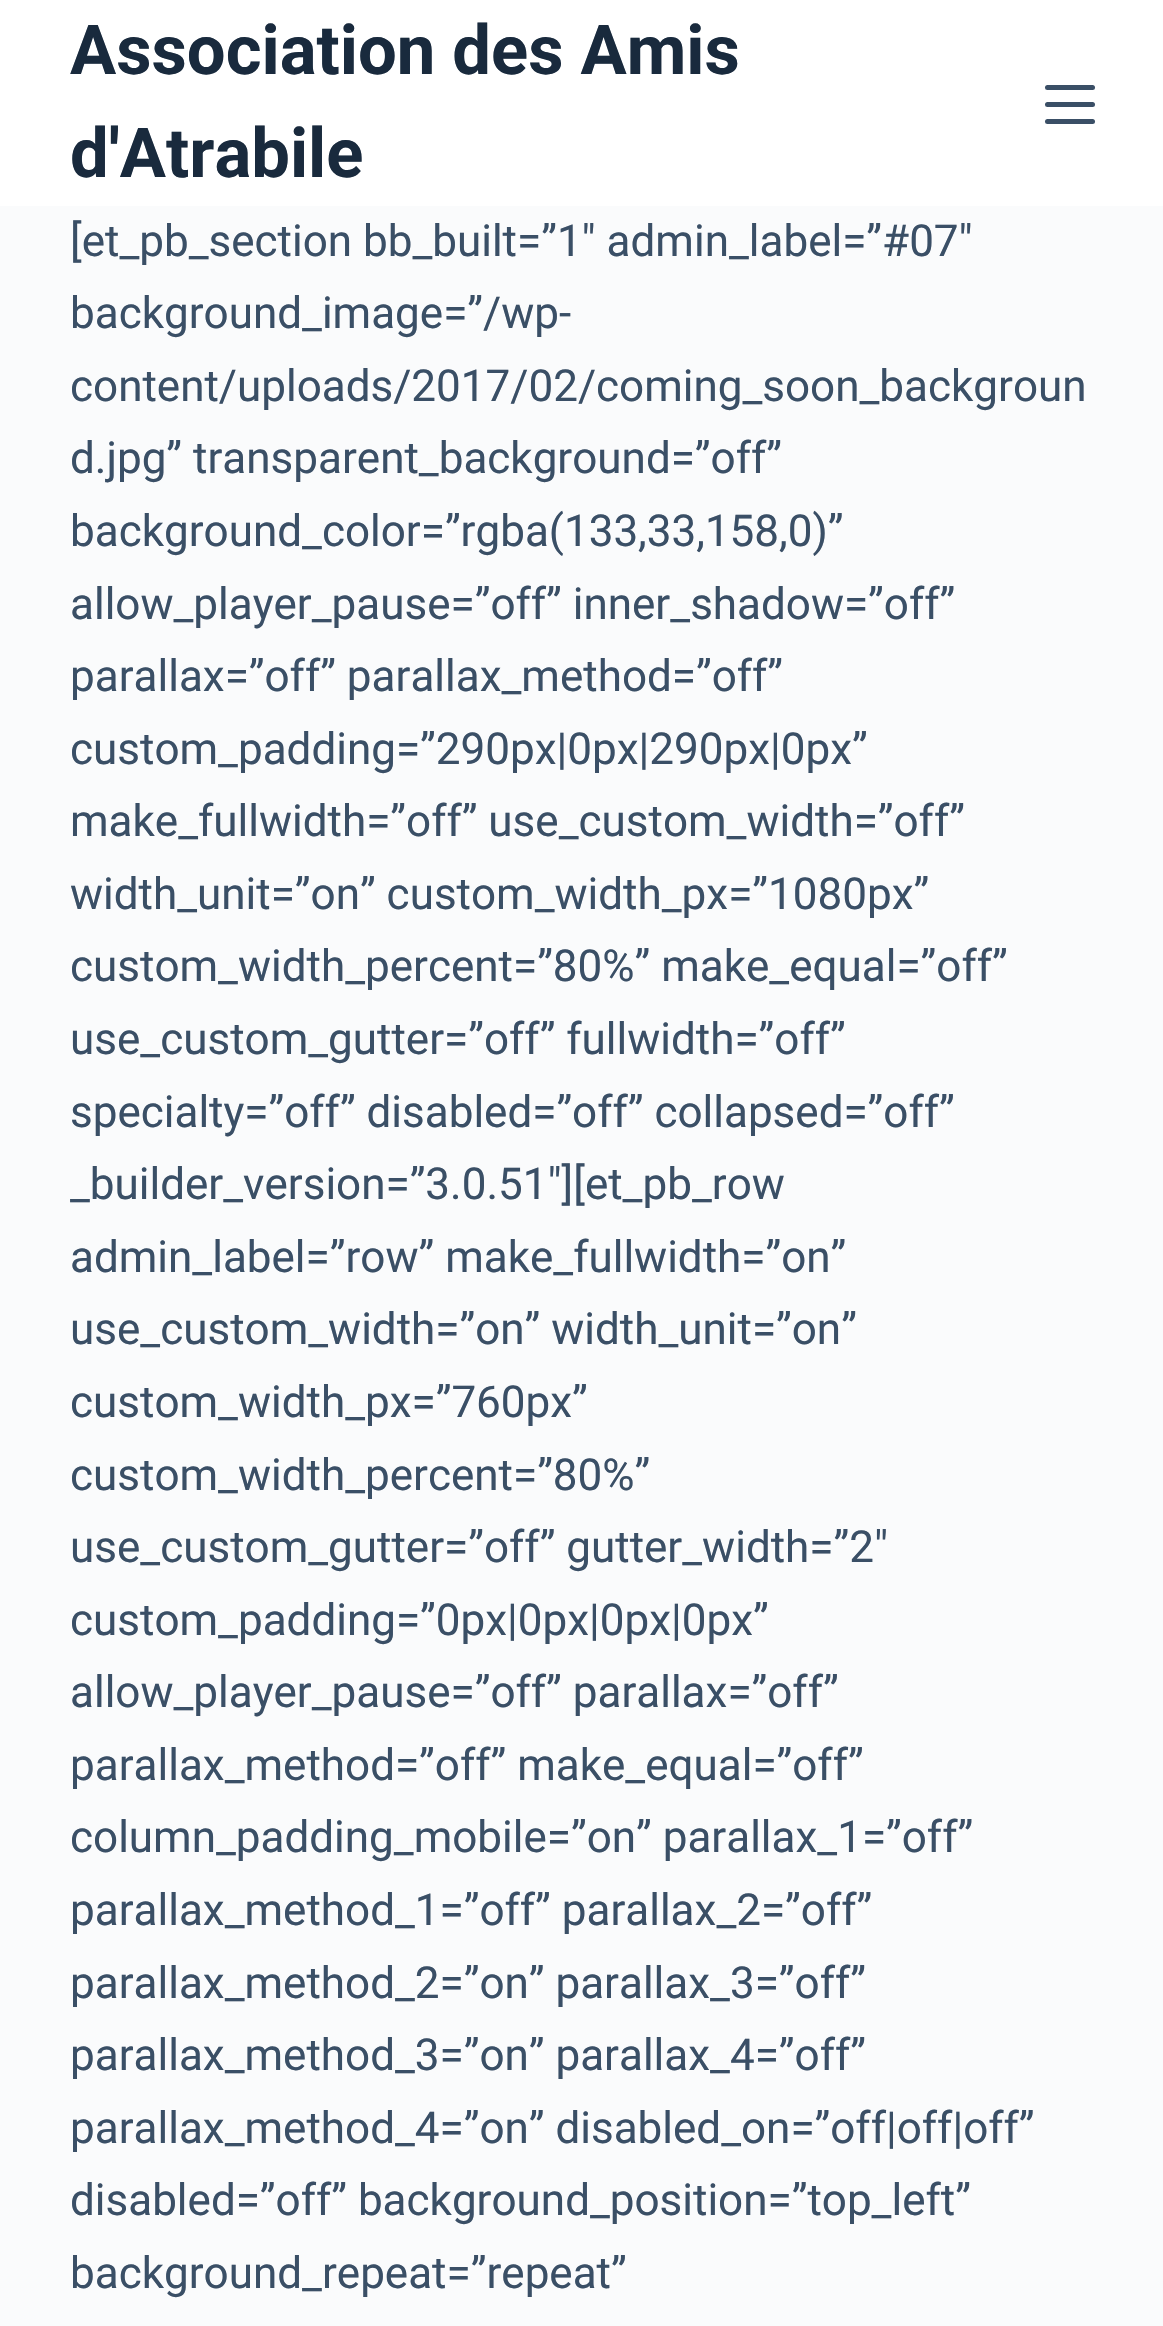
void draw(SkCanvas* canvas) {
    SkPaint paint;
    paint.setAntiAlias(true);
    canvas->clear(0xFFFAFBFC);
    paint.setColor(0xFFFFFFFF);
    canvas->drawRect(SkRect::MakeXYWH(0, 0, 1163, 206), paint);
    SkFont font1(fontMgr->matchFamilyStyle("Roboto", SkFontStyle::Bold()), 68.75f);
    font1.setSubpixel(true);
    paint.setColor(0xFF192A3D);
    canvas->drawString("Association des Amis", 70, 74, font1, paint);
    canvas->drawString("d'Atrabile", 70, 177, font1, paint);
    paint.setColor(0xFF3A4F66);
    canvas->drawRoundRect(SkRect::MakeXYWH(1045, 85, 50, 5), 2.5f, 2.5f, paint);
    canvas->drawRoundRect(SkRect::MakeXYWH(1045, 102, 50, 5), 2.5f, 2.5f, paint);
    canvas->drawRoundRect(SkRect::MakeXYWH(1045, 119, 50, 5), 2.5f, 2.5f, paint);
    SkFont font2(fontMgr->matchFamilyStyle("Roboto", SkFontStyle::Normal()), 44);
    font2.setSubpixel(true);
    canvas->drawString("[et_pb_section bb_built=”1″ admin_label=”#07″", 70, 256, font2, paint);
    canvas->drawString("background_image=”/wp-", 70, 328, font2, paint);
    canvas->drawString("content/uploads/2017/02/coming_soon_backgroun", 70, 401, font2, paint);
    canvas->drawString("d.jpg” transparent_background=”off”", 70, 473, font2, paint);
    canvas->drawString("background_color=”rgba(133,33,158,0)”", 70, 546, font2, paint);
    canvas->drawString("allow_player_pause=”off” inner_shadow=”off”", 70, 619, font2, paint);
    canvas->drawString("parallax=”off” parallax_method=”off”", 70, 691, font2, paint);
    canvas->drawString("custom_padding=”290px|0px|290px|0px”", 70, 764, font2, paint);
    canvas->drawString("make_fullwidth=”off” use_custom_width=”off”", 70, 836, font2, paint);
    canvas->drawString("width_unit=”on” custom_width_px=”1080px”", 70, 909, font2, paint);
    canvas->drawString("custom_width_percent=”80%” make_equal=”off”", 70, 981, font2, paint);
    canvas->drawString("use_custom_gutter=”off” fullwidth=”off”", 70, 1054, font2, paint);
    canvas->drawString("specialty=”off” disabled=”off” collapsed=”off”", 70, 1127, font2, paint);
    canvas->drawString("_builder_version=”3.0.51″][et_pb_row", 70, 1199, font2, paint);
    canvas->drawString("admin_label=”row” make_fullwidth=”on”", 70, 1272, font2, paint);
    canvas->drawString("use_custom_width=”on” width_unit=”on”", 70, 1344, font2, paint);
    canvas->drawString("custom_width_px=”760px”", 70, 1417, font2, paint);
    canvas->drawString("custom_width_percent=”80%”", 70, 1490, font2, paint);
    canvas->drawString("use_custom_gutter=”off” gutter_width=”2″", 70, 1562, font2, paint);
    canvas->drawString("custom_padding=”0px|0px|0px|0px”", 70, 1635, font2, paint);
    canvas->drawString("allow_player_pause=”off” parallax=”off”", 70, 1707, font2, paint);
    canvas->drawString("parallax_method=”off” make_equal=”off”", 70, 1780, font2, paint);
    canvas->drawString("column_padding_mobile=”on” parallax_1=”off”", 70, 1852, font2, paint);
    canvas->drawString("parallax_method_1=”off” parallax_2=”off”", 70, 1925, font2, paint);
    canvas->drawString("parallax_method_2=”on” parallax_3=”off”", 70, 1998, font2, paint);
    canvas->drawString("parallax_method_3=”on” parallax_4=”off”", 70, 2070, font2, paint);
    canvas->drawString("parallax_method_4=”on” disabled_on=”off|off|off”", 70, 2143, font2, paint);
    canvas->drawString("disabled=”off” background_position=”top_left”", 70, 2215, font2, paint);
    canvas->drawString("background_repeat=”repeat”", 70, 2288, font2, paint);
}
